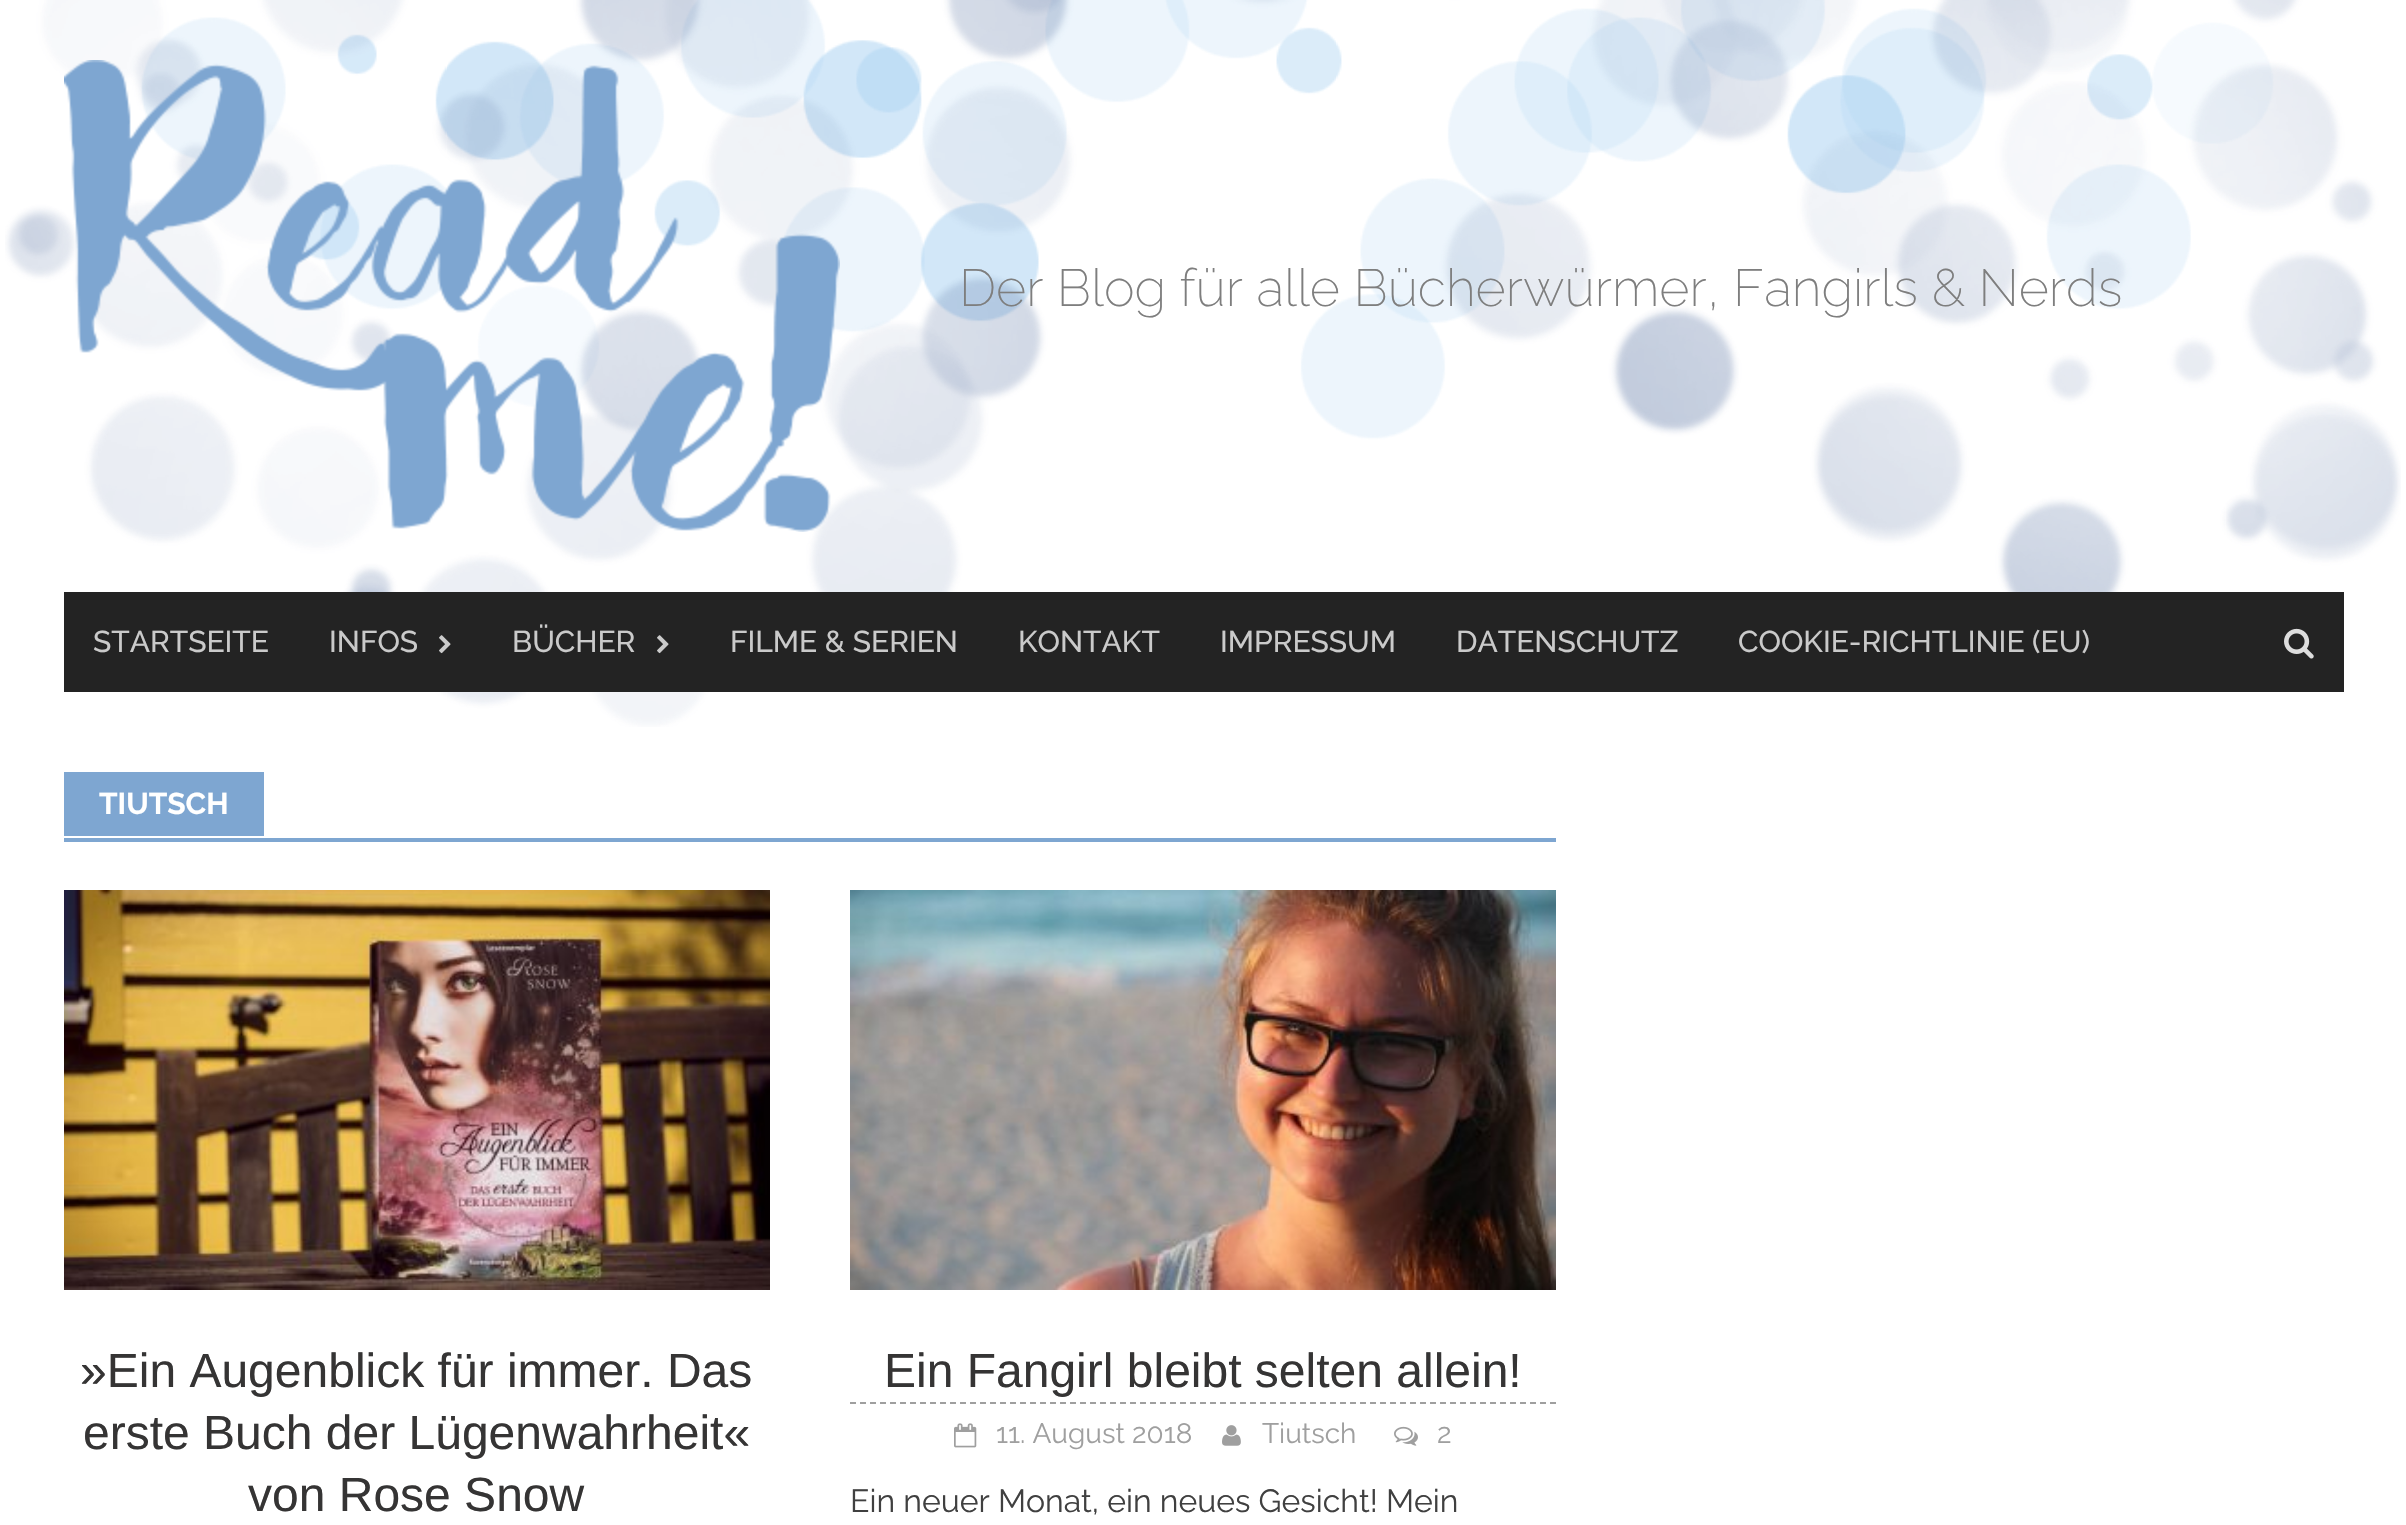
void draw(SkCanvas* canvas) {
    SkPaint paint;
    paint.setAntiAlias(true);
    canvas->clear(0xFFFFFFFF);
    canvas->drawImageRect(SkImages::DeferredFromEncodedData(SkData::MakeFromFileName("img1.png")), SkRect::MakeXYWH(5, 0, 2396, 727), SkSamplingOptions());
    canvas->drawImageRect(SkImages::DeferredFromEncodedData(SkData::MakeFromFileName("img2.png")), SkRect::MakeXYWH(64, 60, 776, 472), SkSamplingOptions());
    SkFont font1(fontMgr->matchFamilyStyle("Raleway", SkFontStyle(200, SkFontStyle::kNormal_Width, SkFontStyle::kUpright_Slant)), 52);
    font1.setSubpixel(true);
    paint.setColor(0xFF7E7E7E);
    canvas->drawString("Der Blog für alle Bücherwürmer, Fangirls & Nerds", 959, 306, font1, paint);
    paint.setColor(0xFF232323);
    canvas->drawRect(SkRect::MakeXYWH(64, 592, 2280, 100), paint);
    SkFont font2(fontMgr->matchFamilyStyle("Raleway", SkFontStyle(500, SkFontStyle::kNormal_Width, SkFontStyle::kUpright_Slant)), 30);
    font2.setSubpixel(true);
    paint.setColor(0xFFCACACA);
    canvas->drawString("STARTSEITE", 93, 652, font2, paint);
    canvas->drawString("INFOS", 329, 652, font2, paint);
    canvas->drawImageRect(SkImages::DeferredFromEncodedData(SkData::MakeFromFileName("img3.png")), SkRect::MakeXYWH(439, 635, 12, 19), SkSamplingOptions());
    canvas->drawString("BÜCHER", 512, 652, font2, paint);
    canvas->drawImageRect(SkImages::DeferredFromEncodedData(SkData::MakeFromFileName("img3.png")), SkRect::MakeXYWH(657, 635, 12, 19), SkSamplingOptions());
    canvas->drawString("FILME & SERIEN", 730, 652, font2, paint);
    canvas->drawString("KONTAKT", 1018, 652, font2, paint);
    canvas->drawString("IMPRESSUM", 1220, 652, font2, paint);
    canvas->drawString("DATENSCHUTZ", 1456, 652, font2, paint);
    canvas->drawString("COOKIE-RICHTLINIE (EU)", 1738, 652, font2, paint);
    canvas->drawImageRect(SkImages::DeferredFromEncodedData(SkData::MakeFromFileName("img4.png")), SkRect::MakeXYWH(2284, 628, 30, 31), SkSamplingOptions());
    paint.setColor(0xFF7EA6D1);
    canvas->drawRect(SkRect::MakeXYWH(64, 838, 1492, 4), paint);
    canvas->drawRect(SkRect::MakeXYWH(64, 772, 200, 64), paint);
    SkFont font3(fontMgr->matchFamilyStyle("Raleway", SkFontStyle::Bold()), 30);
    font3.setSubpixel(true);
    paint.setColor(0xFFFFFFFF);
    canvas->drawString("TIUTSCH", 99, 814, font3, paint);
    canvas->drawImageRect(SkImages::DeferredFromEncodedData(SkData::MakeFromFileName("img5.png")), SkRect::MakeXYWH(64, 890, 706, 400), SkSamplingOptions());
    SkFont font4(fontMgr->matchFamilyStyle("Liberation Sans", SkFontStyle::Normal()), 48);
    font4.setSubpixel(true);
    paint.setColor(0xFF353434);
    canvas->drawString("»Ein Augenblick für immer. Das", 80, 1387, font4, paint);
    canvas->drawString("erste Buch der Lügenwahrheit«", 83, 1449, font4, paint);
    canvas->drawString("von Rose Snow", 248, 1511, font4, paint);
    canvas->drawImageRect(SkImages::DeferredFromEncodedData(SkData::MakeFromFileName("img6.png")), SkRect::MakeXYWH(850, 890, 706, 400), SkSamplingOptions());
    paint.setStyle(SkPaint::kStroke_Style);
    paint.setStrokeWidth(2);
    paint.setColor(0xFF9F9F9F);
    paint.setPathEffect(SkDashPathEffect::Make({{6, 4}}, 0));
    canvas->drawPath(SkPathBuilder().moveTo(850, 1403).lineTo(1556, 1403).detach(), paint);
    paint.setPathEffect(nullptr);
    paint.setStyle(SkPaint::kFill_Style);
    paint.setColor(0xFF353434);
    canvas->drawString("Ein Fangirl bleibt selten allein!", 884, 1387, font4, paint);
    canvas->drawImageRect(SkImages::DeferredFromEncodedData(SkData::MakeFromFileName("img7.png")), SkRect::MakeXYWH(954, 1423, 23, 25), SkSamplingOptions());
    SkFont font5(fontMgr->matchFamilyStyle("Raleway", SkFontStyle::Normal()), 28);
    font5.setSubpixel(true);
    paint.setColor(0xFF9F9F9F);
    canvas->drawString("11. August 2018", 996, 1443, font5, paint);
    canvas->drawImageRect(SkImages::DeferredFromEncodedData(SkData::MakeFromFileName("img8.png")), SkRect::MakeXYWH(1222, 1425, 19, 21), SkSamplingOptions());
    canvas->drawString("Tiutsch", 1262, 1443, font5, paint);
    canvas->drawImageRect(SkImages::DeferredFromEncodedData(SkData::MakeFromFileName("img9.png")), SkRect::MakeXYWH(1394, 1426, 24, 20), SkSamplingOptions());
    canvas->drawString("2", 1437, 1443, font5, paint);
    SkFont font6(fontMgr->matchFamilyStyle("Raleway", SkFontStyle::Normal()), 32);
    font6.setSubpixel(true);
    paint.setColor(0xFF404040);
    canvas->drawString("Ein neuer Monat, ein neues Gesicht! Mein", 850, 1512, font6, paint);
}
